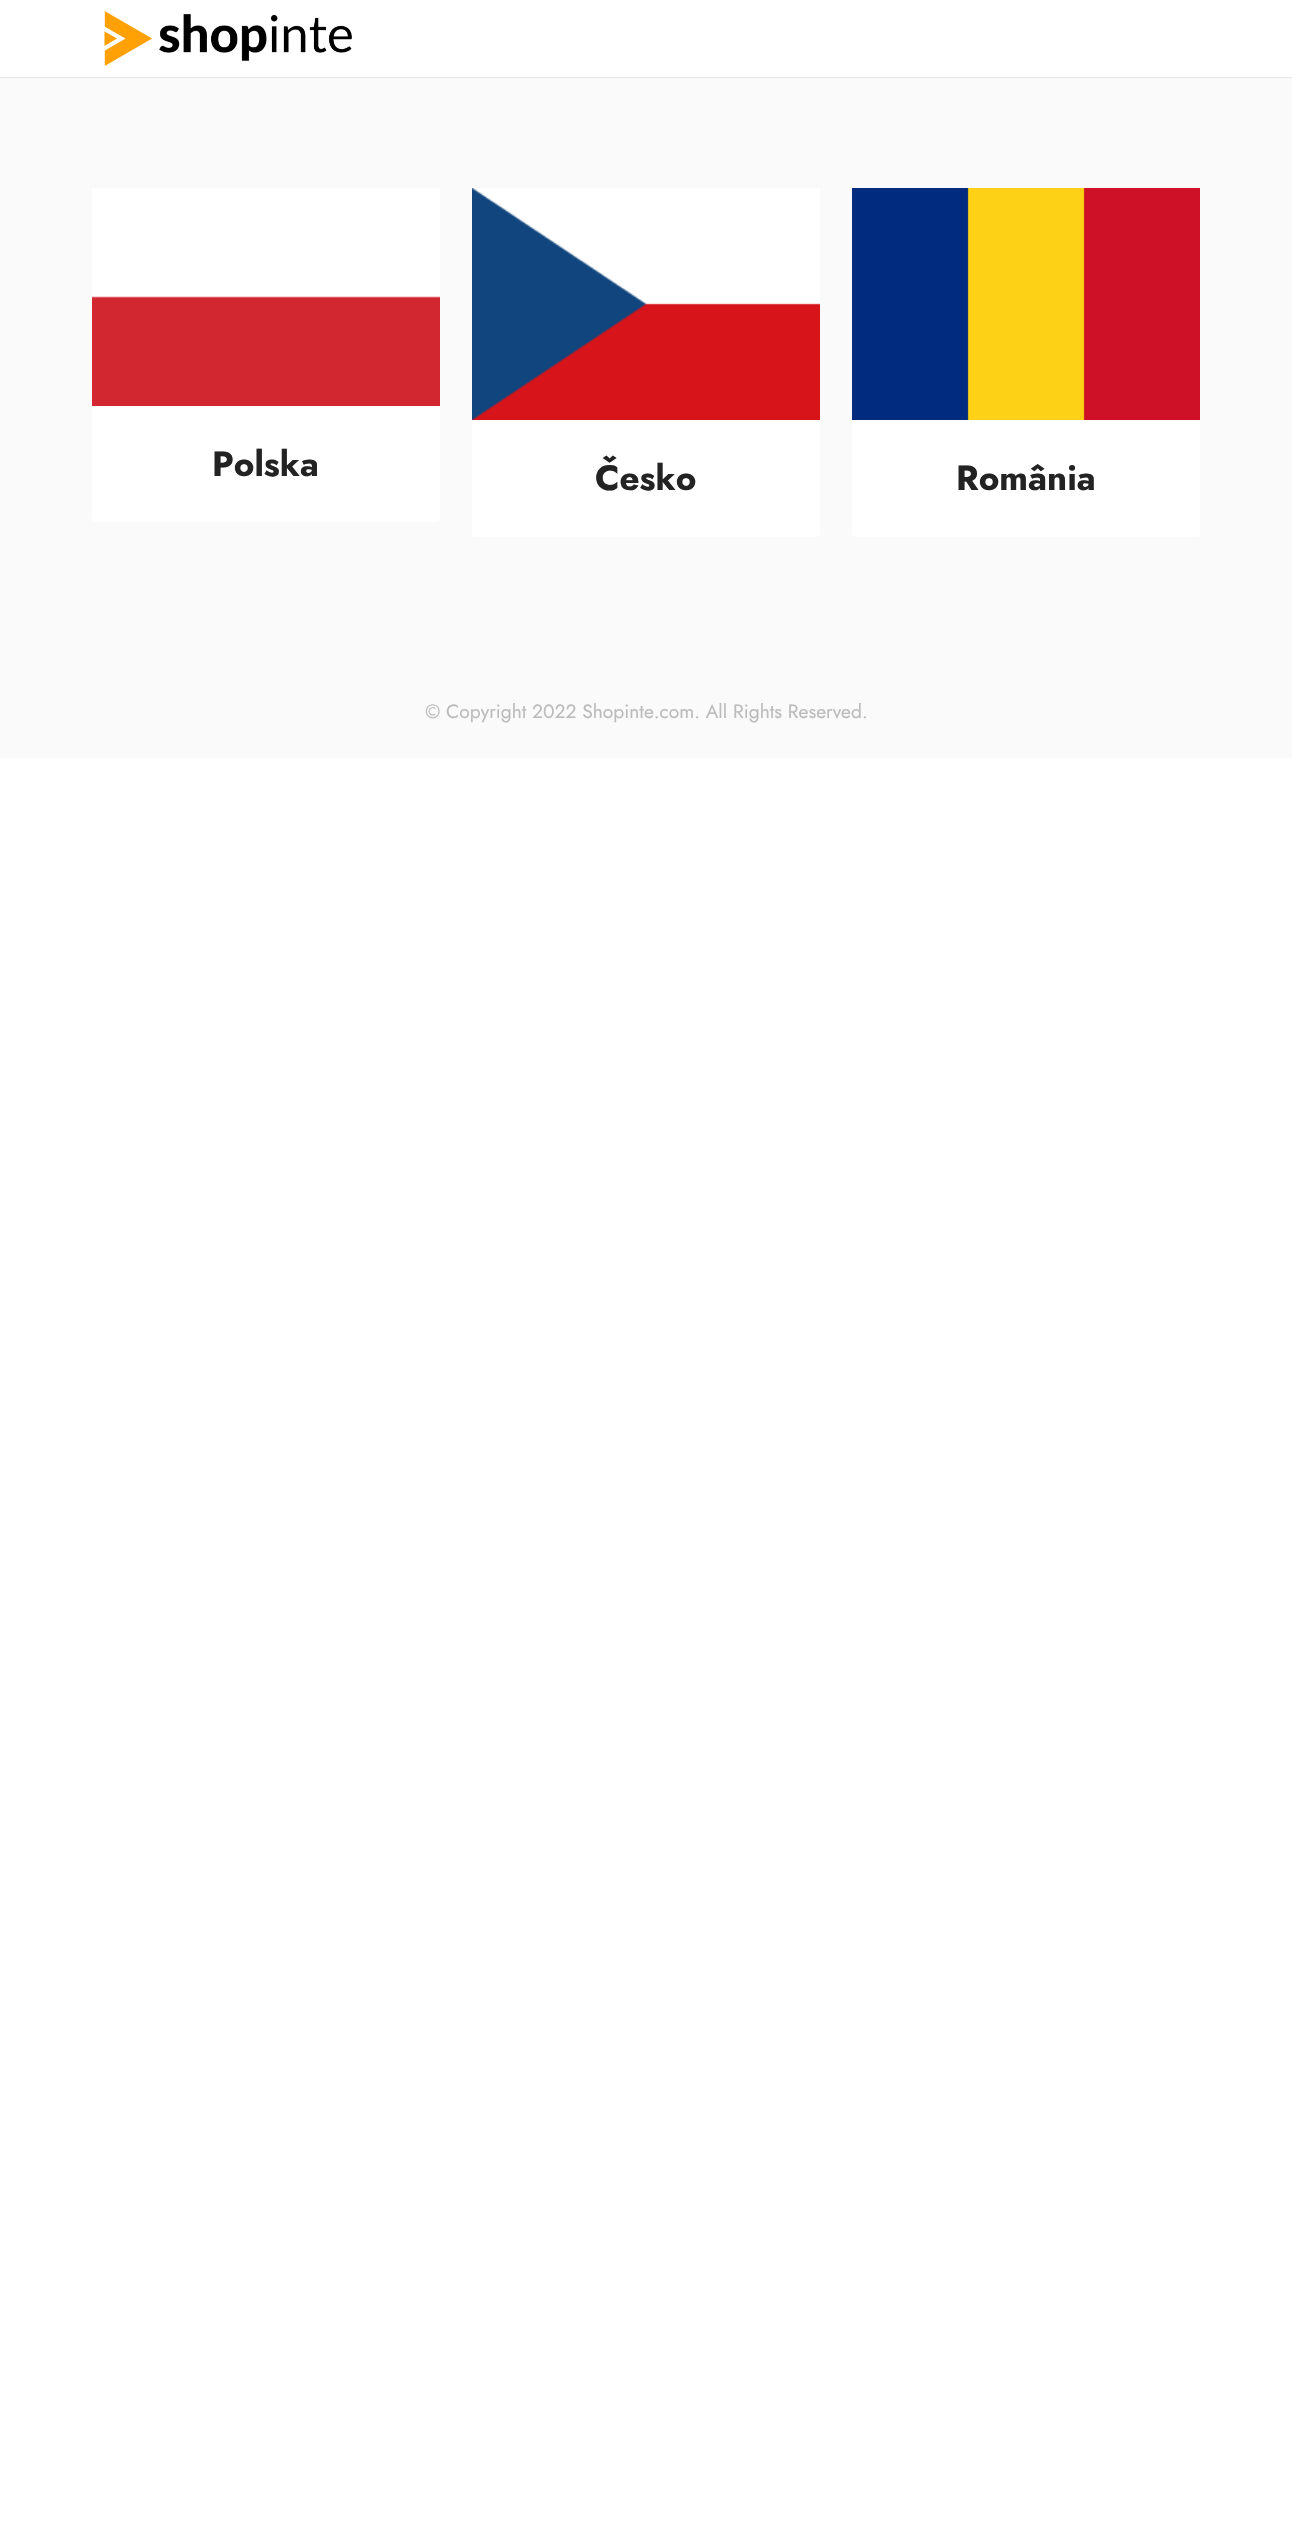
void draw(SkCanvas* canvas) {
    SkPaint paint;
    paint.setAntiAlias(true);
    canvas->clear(0xFFFFFFFF);
    paint.setColor(0xFFE6E6E6);
    canvas->drawRect(SkRect::MakeXYWH(0, 77, 1292, 1), paint);
    canvas->drawImageRect(SkImages::DeferredFromEncodedData(SkData::MakeFromFileName("img1.png")), SkRect::MakeXYWH(104, 11, 248, 55), SkSamplingOptions());
    paint.setColor(0xFFFAFAFA);
    canvas->drawRect(SkRect::MakeXYWH(0, 78, 1292, 680), paint);
    paint.setColor(0xFFFFFFFF);
    canvas->drawRoundRect(SkRect::MakeXYWH(92, 188, 348, 334), 4, 4, paint);
    canvas->drawImageRect(SkImages::DeferredFromEncodedData(SkData::MakeFromFileName("img2.png")), SkRect::MakeXYWH(92, 188, 348, 218), SkSamplingOptions());
    SkFont font1(fontMgr->matchFamilyStyle("Jost", SkFontStyle::Bold()), 35);
    font1.setSubpixel(true);
    paint.setColor(0xFF232323);
    canvas->drawString("Polska", 212, 476, font1, paint);
    paint.setColor(0xFFFFFFFF);
    canvas->drawRoundRect(SkRect::MakeXYWH(472, 188, 348, 349), 4, 4, paint);
    canvas->drawImageRect(SkImages::DeferredFromEncodedData(SkData::MakeFromFileName("img3.png")), SkRect::MakeXYWH(472, 188, 348, 232), SkSamplingOptions());
    paint.setColor(0xFF232323);
    canvas->drawString("Česko", 595, 490, font1, paint);
    paint.setColor(0xFFFFFFFF);
    canvas->drawRoundRect(SkRect::MakeXYWH(852, 188, 348, 349), 4, 4, paint);
    canvas->drawImageRect(SkImages::DeferredFromEncodedData(SkData::MakeFromFileName("img4.png")), SkRect::MakeXYWH(852, 188, 348, 232), SkSamplingOptions());
    paint.setColor(0xFF232323);
    canvas->drawString("România", 956, 490, font1, paint);
    SkFont font2(fontMgr->matchFamilyStyle("Jost", SkFontStyle::Normal()), 19.2f);
    font2.setSubpixel(true);
    paint.setColor(0xFFBBBBBB);
    canvas->drawString("© Copyright 2022 Shopinte.com. All Rights Reserved.", 425, 718, font2, paint);
}
